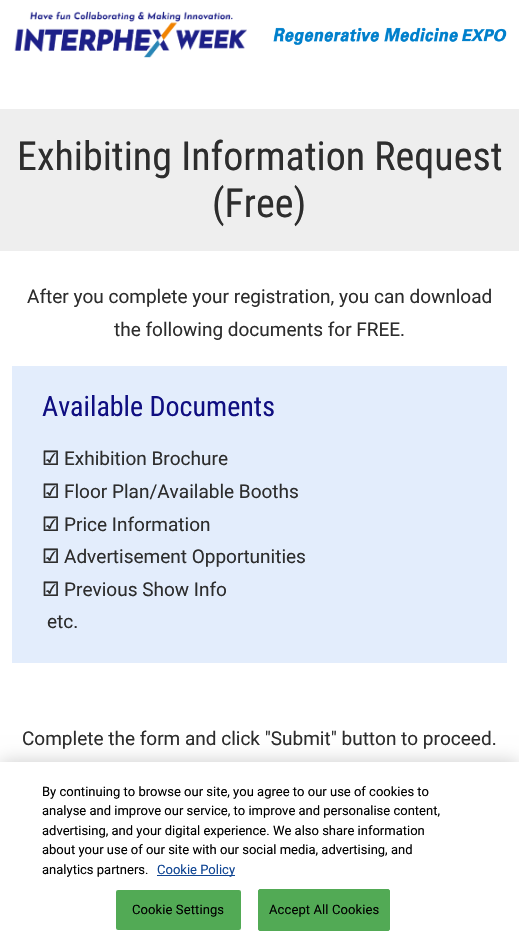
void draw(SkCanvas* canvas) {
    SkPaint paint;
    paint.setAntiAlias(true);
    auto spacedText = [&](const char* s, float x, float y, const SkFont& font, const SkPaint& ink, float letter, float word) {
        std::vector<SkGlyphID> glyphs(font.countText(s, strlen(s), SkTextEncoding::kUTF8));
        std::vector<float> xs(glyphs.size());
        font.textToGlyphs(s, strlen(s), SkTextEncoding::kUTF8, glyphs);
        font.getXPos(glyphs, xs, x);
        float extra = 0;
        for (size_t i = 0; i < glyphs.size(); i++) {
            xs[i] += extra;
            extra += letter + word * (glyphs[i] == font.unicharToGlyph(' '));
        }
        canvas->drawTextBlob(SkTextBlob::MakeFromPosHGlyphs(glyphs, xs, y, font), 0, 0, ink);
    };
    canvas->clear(0xFFFFFFFF);
    canvas->drawImageRect(SkImages::DeferredFromEncodedData(SkData::MakeFromFileName("img1.png")), SkRect::MakeXYWH(14, 11, 233, 47), SkSamplingOptions());
    canvas->drawImageRect(SkImages::DeferredFromEncodedData(SkData::MakeFromFileName("img2.png")), SkRect::MakeXYWH(273, 27, 234, 18), SkSamplingOptions());
    paint.setColor(0xFFEEEEEE);
    canvas->drawRect(SkRect::MakeXYWH(0, 109, 519, 142), paint);
    SkFont font1(fontMgr->matchFamilyStyle("Roboto Condensed", SkFontStyle::Normal()), 40);
    font1.setSubpixel(true);
    paint.setColor(0xFF2D2D2D);
    canvas->drawString("Exhibiting Information Request", 17, 170, font1, paint);
    canvas->drawString("(Free)", 212, 217, font1, paint);
    SkFont font2(fontMgr->matchFamilyStyle("Roboto", SkFontStyle::Normal()), 19);
    font2.setSubpixel(true);
    canvas->drawString("After you complete your registration, you can download", 27, 303, font2, paint);
    canvas->drawString("the following documents for FREE.", 114, 336, font2, paint);
    paint.setColor(0xFFE3EDFC);
    canvas->drawRect(SkRect::MakeXYWH(12, 366, 495, 297), paint);
    SkFont font3(fontMgr->matchFamilyStyle("Roboto Condensed", SkFontStyle::Normal()), 28);
    font3.setSubpixel(true);
    paint.setColor(0xFF0F0E81);
    canvas->drawString("Available Documents", 42, 416, font3, paint);
    SkFont font4(fontMgr->matchFamilyStyle("DejaVu Sans", SkFontStyle::Bold()), 19);
    font4.setSubpixel(true);
    paint.setColor(0xFF2D2D2D);
    canvas->drawString("☑", 42, 465, font4, paint);
    canvas->drawString("Exhibition Brochure", 64, 465, font2, paint);
    canvas->drawString("☑", 42, 498, font4, paint);
    canvas->drawString("Floor Plan/Available Booths", 64, 498, font2, paint);
    canvas->drawString("☑", 42, 531, font4, paint);
    canvas->drawString("Price Information", 64, 531, font2, paint);
    canvas->drawString("☑", 42, 563, font4, paint);
    canvas->drawString("Advertisement Opportunities", 64, 563, font2, paint);
    canvas->drawString("☑", 42, 596, font4, paint);
    canvas->drawString("Previous Show Info", 64, 596, font2, paint);
    canvas->drawString("etc.", 47, 628, font2, paint);
    canvas->drawString("Complete the form and click \"Submit\" button to proceed.", 22, 745, font2, paint);
    paint.setColor(0x33000000);
    paint.setMaskFilter(SkMaskFilter::MakeBlur(kNormal_SkBlurStyle, 9));
    canvas->drawRect(SkRect::MakeXYWH(0, 762, 519, 179), paint);
    paint.setMaskFilter(nullptr);
    paint.setColor(0xFFFFFFFF);
    canvas->drawRect(SkRect::MakeXYWH(0, 762, 519, 179), paint);
    SkFont font5(fontMgr->matchFamilyStyle("Roboto", SkFontStyle::Normal()), 13);
    font5.setSubpixel(true);
    paint.setColor(0xFF000000);
    canvas->drawString("By continuing to browse our site, you agree to our use of cookies to", 42, 796, font5, paint);
    canvas->drawString("analyse and improve our service, to improve and personalise content,", 42, 815, font5, paint);
    canvas->drawString("advertising, and your digital experience. We also share information", 42, 835, font5, paint);
    canvas->drawString("about your use of our site with our social media, advertising, and", 42, 854, font5, paint);
    canvas->drawString("analytics partners.", 42, 874, font5, paint);
    paint.setColor(0xFF104593);
    canvas->drawRect(SkRect::MakeXYWH(157, 875, 78, 1), paint);
    canvas->drawString("Cookie Policy", 157, 874, font5, paint);
    paint.setColor(0xFF52AA55);
    canvas->drawRoundRect(SkRect::MakeXYWH(116, 890, 125, 40), 2, 2, paint);
    paint.setColor(0xFF000000);
    spacedText("Cookie Settings", 132, 914, font5, paint, 0.1f, 0);
    paint.setColor(0xFF52AA55);
    canvas->drawRoundRect(SkRect::MakeXYWH(258.5f, 889.5f, 131, 41), 1.5f, 1.5f, paint);
    paint.setStyle(SkPaint::kStroke_Style);
    paint.setStrokeWidth(1);
    canvas->drawRoundRect(SkRect::MakeXYWH(258.5f, 889.5f, 131, 41), 1.5f, 1.5f, paint);
    paint.setStyle(SkPaint::kFill_Style);
    paint.setColor(0xFF000000);
    spacedText("Accept All Cookies", 269, 914, font5, paint, 0.1f, 0);
}
